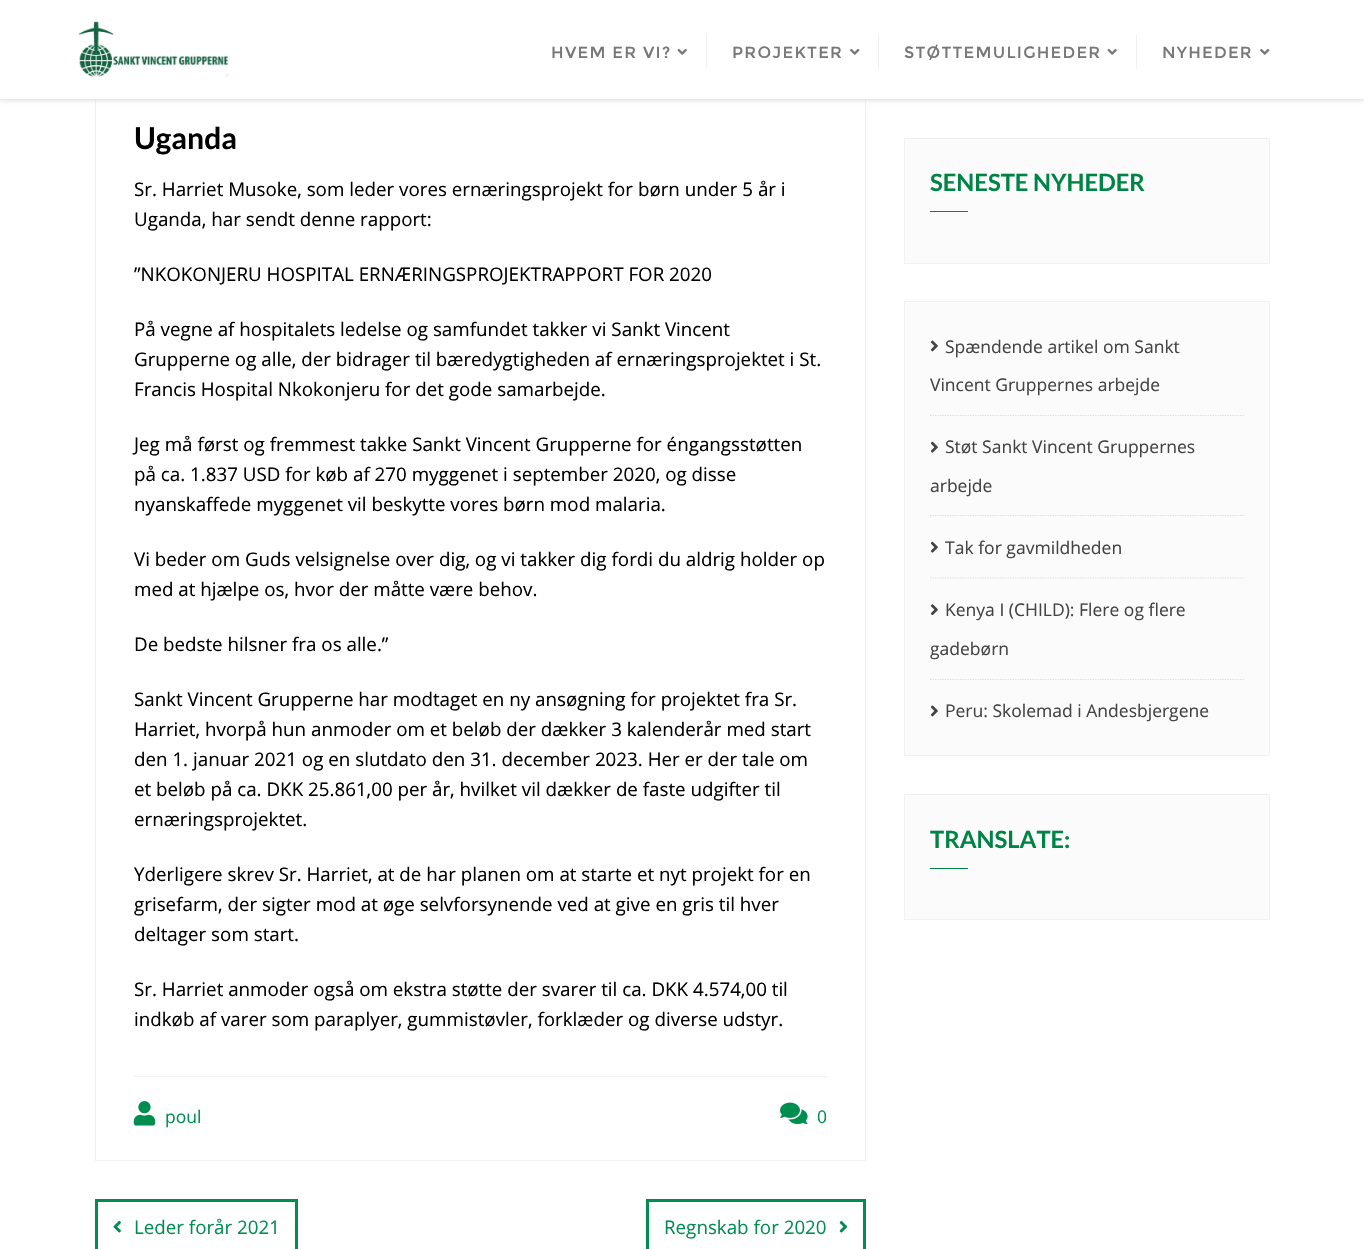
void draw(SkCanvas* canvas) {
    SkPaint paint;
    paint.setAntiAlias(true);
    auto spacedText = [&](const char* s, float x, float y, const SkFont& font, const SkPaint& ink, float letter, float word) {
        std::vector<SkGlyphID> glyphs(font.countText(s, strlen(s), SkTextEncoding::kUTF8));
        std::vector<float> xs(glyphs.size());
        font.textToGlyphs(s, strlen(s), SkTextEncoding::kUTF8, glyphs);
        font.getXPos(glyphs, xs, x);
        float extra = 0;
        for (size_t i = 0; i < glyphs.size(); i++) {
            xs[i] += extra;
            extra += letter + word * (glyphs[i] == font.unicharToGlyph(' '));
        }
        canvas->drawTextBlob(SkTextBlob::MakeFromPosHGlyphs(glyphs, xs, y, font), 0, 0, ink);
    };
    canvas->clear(0xFFFFFFFF);
    paint.setStyle(SkPaint::kStroke_Style);
    paint.setStrokeWidth(1);
    paint.setColor(0xFFF1F1F1);
    canvas->drawRect(SkRect::MakeXYWH(95.5f, -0.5f, 770, 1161), paint);
    paint.setStyle(SkPaint::kFill_Style);
    paint.setColor(0xFFCCCCCC);
    paint.setMaskFilter(SkMaskFilter::MakeBlur(kNormal_SkBlurStyle, 3));
    canvas->drawRect(SkRect::MakeXYWH(0, 0, 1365, 99), paint);
    paint.setMaskFilter(nullptr);
    paint.setColor(0xFFFFFFFF);
    canvas->drawRect(SkRect::MakeXYWH(0, 0, 1364, 99), paint);
    canvas->drawImageRect(SkImages::DeferredFromEncodedData(SkData::MakeFromFileName("img1.png")), SkRect::MakeXYWH(78, 21, 151, 56), SkSamplingOptions());
    SkFont font1(fontMgr->matchFamilyStyle("Montserrat", SkFontStyle::Normal()), 16.25f);
    font1.setSubpixel(true);
    paint.setColor(0xFF777777);
    spacedText("HVEM ER VI?", 551, 58, font1, paint, 1.25f, 0);
    canvas->drawImageRect(SkImages::DeferredFromEncodedData(SkData::MakeFromFileName("img2.png")), SkRect::MakeXYWH(677, 48, 10, 7), SkSamplingOptions());
    paint.setColor(0xFFF1F1F1);
    canvas->drawRect(SkRect::MakeXYWH(706, 34, 1, 35), paint);
    paint.setColor(0xFF777777);
    spacedText("PROJEKTER", 732, 58, font1, paint, 1.25f, 0);
    canvas->drawImageRect(SkImages::DeferredFromEncodedData(SkData::MakeFromFileName("img3.png")), SkRect::MakeXYWH(850, 48, 10, 7), SkSamplingOptions());
    paint.setColor(0xFFF1F1F1);
    canvas->drawRect(SkRect::MakeXYWH(878, 34, 1, 35), paint);
    paint.setColor(0xFF777777);
    spacedText("STØTTEMULIGHEDER", 904, 58, font1, paint, 1.25f, 0);
    canvas->drawImageRect(SkImages::DeferredFromEncodedData(SkData::MakeFromFileName("img2.png")), SkRect::MakeXYWH(1107, 48, 10, 7), SkSamplingOptions());
    paint.setColor(0xFFF1F1F1);
    canvas->drawRect(SkRect::MakeXYWH(1136, 34, 1, 35), paint);
    paint.setColor(0xFF777777);
    spacedText("NYHEDER", 1162, 58, font1, paint, 1.25f, 0);
    canvas->drawImageRect(SkImages::DeferredFromEncodedData(SkData::MakeFromFileName("img3.png")), SkRect::MakeXYWH(1260, 48, 10, 7), SkSamplingOptions());
    SkFont font2(fontMgr->matchFamilyStyle("Lato", SkFontStyle::Bold()), 30);
    font2.setSubpixel(true);
    paint.setColor(0xFF000000);
    canvas->drawString("Uganda", 134, 149, font2, paint);
    SkFont font3(fontMgr->matchFamilyStyle("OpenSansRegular", SkFontStyle::Normal()), 18.75f);
    font3.setSubpixel(true);
    canvas->drawString("Sr. Harriet Musoke, som leder vores ernæringsprojekt for børn under 5 år i", 134, 196, font3, paint);
    canvas->drawString("Uganda, har sendt denne rapport:", 134, 226, font3, paint);
    canvas->drawString("”NKOKONJERU HOSPITAL ERNÆRINGSPROJEKTRAPPORT FOR 2020", 134, 281, font3, paint);
    canvas->drawString("På vegne af hospitalets ledelse og samfundet takker vi Sankt Vincent", 134, 336, font3, paint);
    canvas->drawString("Grupperne og alle, der bidrager til bæredygtigheden af ernæringsprojektet i St.", 134, 366, font3, paint);
    canvas->drawString("Francis Hospital Nkokonjeru for det gode samarbejde.", 134, 396, font3, paint);
    canvas->drawString("Jeg må først og fremmest takke Sankt Vincent Grupperne for éngangsstøtten", 134, 451, font3, paint);
    canvas->drawString("på ca. 1.837 USD for køb af 270 myggenet i september 2020, og disse", 134, 481, font3, paint);
    canvas->drawString("nyanskaffede myggenet vil beskytte vores børn mod malaria.", 134, 511, font3, paint);
    canvas->drawString("Vi beder om Guds velsignelse over dig, og vi takker dig fordi du aldrig holder op", 134, 566, font3, paint);
    canvas->drawString("med at hjælpe os, hvor der måtte være behov.", 134, 596, font3, paint);
    canvas->drawString("De bedste hilsner fra os alle.”", 134, 651, font3, paint);
    canvas->drawString("Sankt Vincent Grupperne har modtaget en ny ansøgning for projektet fra Sr.", 134, 706, font3, paint);
    canvas->drawString("Harriet, hvorpå hun anmoder om et beløb der dækker 3 kalenderår med start", 134, 736, font3, paint);
    canvas->drawString("den 1. januar 2021 og en slutdato den 31. december 2023. Her er der tale om", 134, 766, font3, paint);
    canvas->drawString("et beløb på ca. DKK 25.861,00 per år, hvilket vil dækker de faste udgifter til", 134, 796, font3, paint);
    canvas->drawString("ernæringsprojektet.", 134, 826, font3, paint);
    canvas->drawString("Yderligere skrev Sr. Harriet, at de har planen om at starte et nyt projekt for en", 134, 881, font3, paint);
    canvas->drawString("grisefarm, der sigter mod at øge selvforsynende ved at give en gris til hver", 134, 911, font3, paint);
    canvas->drawString("deltager som start.", 134, 941, font3, paint);
    canvas->drawString("Sr. Harriet anmoder også om ekstra støtte der svarer til ca. DKK 4.574,00 til", 134, 996, font3, paint);
    canvas->drawString("indkøb af varer som paraplyer, gummistøvler, forklæder og diverse udstyr.", 134, 1026, font3, paint);
    paint.setColor(0xFFF1F1F1);
    canvas->drawRect(SkRect::MakeXYWH(134, 1076, 694, 1), paint);
    canvas->drawImageRect(SkImages::DeferredFromEncodedData(SkData::MakeFromFileName("img4.png")), SkRect::MakeXYWH(133, 1101, 23, 25), SkSamplingOptions());
    SkFont font4(fontMgr->matchFamilyStyle("OpenSansRegular", SkFontStyle::Normal()), 17.5f);
    font4.setSubpixel(true);
    paint.setColor(0xFF008E50);
    canvas->drawString("poul", 165, 1123, font4, paint);
    canvas->drawImageRect(SkImages::DeferredFromEncodedData(SkData::MakeFromFileName("img5.png")), SkRect::MakeXYWH(780, 1102, 28, 22), SkSamplingOptions());
    canvas->drawString("0", 817, 1123, font4, paint);
    paint.setStyle(SkPaint::kStroke_Style);
    paint.setStrokeWidth(3);
    canvas->drawRect(SkRect::MakeXYWH(96.5f, 1200.5f, 200, 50), paint);
    canvas->drawImageRect(SkImages::DeferredFromEncodedData(SkData::MakeFromFileName("img6.png")), SkRect::MakeXYWH(113, 1220, 8, 13), SkSamplingOptions());
    paint.setStyle(SkPaint::kFill_Style);
    canvas->drawString("Leder forår 2021", 134, 1234, font3, paint);
    paint.setStyle(SkPaint::kStroke_Style);
    canvas->drawRect(SkRect::MakeXYWH(647.5f, 1200.5f, 217, 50), paint);
    paint.setStyle(SkPaint::kFill_Style);
    canvas->drawString("Regnskab for 2020", 664, 1234, font3, paint);
    canvas->drawImageRect(SkImages::DeferredFromEncodedData(SkData::MakeFromFileName("img7.png")), SkRect::MakeXYWH(839, 1220, 9, 13), SkSamplingOptions());
    paint.setColor(0xFFFBFBFB);
    canvas->drawRect(SkRect::MakeXYWH(904.5f, 138.5f, 365, 125), paint);
    paint.setStyle(SkPaint::kStroke_Style);
    paint.setStrokeWidth(1);
    paint.setColor(0xFFF1F1F1);
    canvas->drawRect(SkRect::MakeXYWH(904.5f, 138.5f, 365, 125), paint);
    SkFont font5(fontMgr->matchFamilyStyle("Lato", SkFontStyle::Bold()), 23.75f);
    font5.setSubpixel(true);
    paint.setStyle(SkPaint::kFill_Style);
    paint.setColor(0xFF008446);
    canvas->drawString("SENESTE NYHEDER", 930, 191, font5, paint);
    canvas->drawRect(SkRect::MakeXYWH(930, 211, 38, 1), paint);
    paint.setColor(0xFFFBFBFB);
    canvas->drawRect(SkRect::MakeXYWH(904.5f, 301.5f, 365, 454), paint);
    paint.setStyle(SkPaint::kStroke_Style);
    paint.setColor(0xFFF1F1F1);
    canvas->drawRect(SkRect::MakeXYWH(904.5f, 301.5f, 365, 454), paint);
    paint.setStrokeWidth(1.2f);
    paint.setColor(0xFFDBDBDB);
    paint.setPathEffect(SkDashPathEffect::Make({{1.25f, 1.25f}}, 0));
    canvas->drawPath(SkPathBuilder().moveTo(930, 415.5f).lineTo(1244, 415.5f).detach(), paint);
    paint.setPathEffect(nullptr);
    canvas->drawImageRect(SkImages::DeferredFromEncodedData(SkData::MakeFromFileName("img8.png")), SkRect::MakeXYWH(930, 340, 8, 12), SkSamplingOptions());
    paint.setStyle(SkPaint::kFill_Style);
    paint.setColor(0xFF434343);
    canvas->drawString("Spændende artikel om Sankt", 945, 353, font4, paint);
    canvas->drawString("Vincent Gruppernes arbejde", 930, 391, font4, paint);
    paint.setStyle(SkPaint::kStroke_Style);
    paint.setColor(0xFFDBDBDB);
    paint.setPathEffect(SkDashPathEffect::Make({{1.25f, 1.25f}}, 0));
    canvas->drawPath(SkPathBuilder().moveTo(930, 515.5f).lineTo(1244, 515.5f).detach(), paint);
    paint.setPathEffect(nullptr);
    canvas->drawImageRect(SkImages::DeferredFromEncodedData(SkData::MakeFromFileName("img9.png")), SkRect::MakeXYWH(930, 441, 8, 12), SkSamplingOptions());
    paint.setStyle(SkPaint::kFill_Style);
    paint.setColor(0xFF434343);
    canvas->drawString("Støt Sankt Vincent Gruppernes", 945, 453, font4, paint);
    canvas->drawString("arbejde", 930, 492, font4, paint);
    paint.setStyle(SkPaint::kStroke_Style);
    paint.setColor(0xFFDBDBDB);
    paint.setPathEffect(SkDashPathEffect::Make({{1.25f, 1.25f}}, 0));
    canvas->drawPath(SkPathBuilder().moveTo(930, 578).lineTo(1244, 578).detach(), paint);
    paint.setPathEffect(nullptr);
    canvas->drawImageRect(SkImages::DeferredFromEncodedData(SkData::MakeFromFileName("img9.png")), SkRect::MakeXYWH(930, 541, 8, 12), SkSamplingOptions());
    paint.setStyle(SkPaint::kFill_Style);
    paint.setColor(0xFF434343);
    canvas->drawString("Tak for gavmildheden", 945, 554, font4, paint);
    paint.setStyle(SkPaint::kStroke_Style);
    paint.setColor(0xFFDBDBDB);
    paint.setPathEffect(SkDashPathEffect::Make({{1.25f, 1.25f}}, 0));
    canvas->drawPath(SkPathBuilder().moveTo(930, 679.5f).lineTo(1244, 679.5f).detach(), paint);
    paint.setPathEffect(nullptr);
    canvas->drawImageRect(SkImages::DeferredFromEncodedData(SkData::MakeFromFileName("img10.png")), SkRect::MakeXYWH(930, 604, 8, 12), SkSamplingOptions());
    paint.setStyle(SkPaint::kFill_Style);
    paint.setColor(0xFF434343);
    canvas->drawString("Kenya I (CHILD): Flere og flere", 945, 616, font4, paint);
    canvas->drawString("gadebørn", 930, 655, font4, paint);
    canvas->drawImageRect(SkImages::DeferredFromEncodedData(SkData::MakeFromFileName("img8.png")), SkRect::MakeXYWH(930, 705, 8, 12), SkSamplingOptions());
    canvas->drawString("Peru: Skolemad i Andesbjergene", 945, 717, font4, paint);
    paint.setColor(0xFFFBFBFB);
    canvas->drawRect(SkRect::MakeXYWH(904.5f, 794.5f, 365, 125), paint);
    paint.setStyle(SkPaint::kStroke_Style);
    paint.setStrokeWidth(1);
    paint.setColor(0xFFF1F1F1);
    canvas->drawRect(SkRect::MakeXYWH(904.5f, 794.5f, 365, 125), paint);
    paint.setStyle(SkPaint::kFill_Style);
    paint.setColor(0xFF008446);
    canvas->drawString("TRANSLATE:", 930, 848, font5, paint);
    canvas->drawRect(SkRect::MakeXYWH(930, 868, 38, 1), paint);
}
